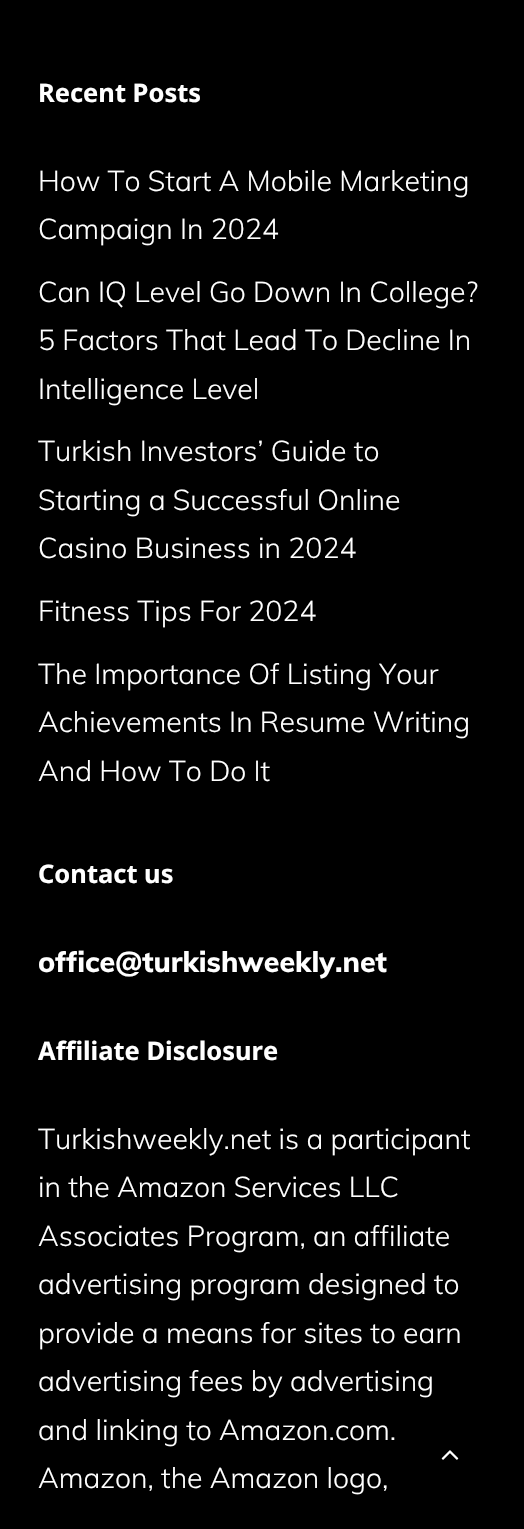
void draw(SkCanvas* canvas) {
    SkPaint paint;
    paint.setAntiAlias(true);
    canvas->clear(0xFF000000);
    SkFont font1(fontMgr->matchFamilyStyle("Noto Sans", SkFontStyle::Bold()), 25.5f);
    font1.setSubpixel(true);
    paint.setColor(0xFFFFFFFF);
    canvas->drawString("Recent Posts", 38, 102, font1, paint);
    SkFont font2(fontMgr->matchFamilyStyle("Muli", SkFontStyle(300, SkFontStyle::kNormal_Width, SkFontStyle::kUpright_Slant)), 28.5f);
    font2.setSubpixel(true);
    canvas->drawString("How To Start A Mobile Marketing", 38, 191, font2, paint);
    canvas->drawString("Campaign In 2024", 38, 239, font2, paint);
    canvas->drawString("Can IQ Level Go Down In College?", 38, 302, font2, paint);
    canvas->drawString("5 Factors That Lead To Decline In", 38, 350, font2, paint);
    canvas->drawString("Intelligence Level", 38, 399, font2, paint);
    canvas->drawString("Turkish Investors’ Guide to", 38, 461, font2, paint);
    canvas->drawString("Starting a Successful Online", 38, 510, font2, paint);
    canvas->drawString("Casino Business in 2024", 38, 558, font2, paint);
    canvas->drawString("Fitness Tips For 2024", 38, 621, font2, paint);
    canvas->drawString("The Importance Of Listing Your", 38, 684, font2, paint);
    canvas->drawString("Achievements In Resume Writing", 38, 732, font2, paint);
    canvas->drawString("And How To Do It", 38, 781, font2, paint);
    canvas->drawString("Contact us", 38, 883, font1, paint);
    SkFont font3(fontMgr->matchFamilyStyle("Muli", SkFontStyle(800, SkFontStyle::kNormal_Width, SkFontStyle::kUpright_Slant)), 28.5f);
    font3.setSubpixel(true);
    canvas->drawString("office@turkishweekly.net", 38, 972, font3, paint);
    canvas->drawString("Affiliate Disclosure", 38, 1060, font1, paint);
    canvas->drawString("Turkishweekly.net is a participant", 38, 1149, font2, paint);
    canvas->drawString("in the Amazon Services LLC", 38, 1197, font2, paint);
    canvas->drawString("Associates Program, an affiliate", 38, 1246, font2, paint);
    canvas->drawString("advertising program designed to", 38, 1294, font2, paint);
    canvas->drawString("provide a means for sites to earn", 38, 1343, font2, paint);
    canvas->drawString("advertising fees by advertising", 38, 1391, font2, paint);
    canvas->drawString("and linking to Amazon.com.", 38, 1440, font2, paint);
    canvas->drawString("Amazon, the Amazon logo,", 38, 1488, font2, paint);
    canvas->drawImageRect(SkImages::DeferredFromEncodedData(SkData::MakeFromFileName("img1.png")), SkRect::MakeXYWH(441, 1450, 18, 10), SkSamplingOptions());
}
